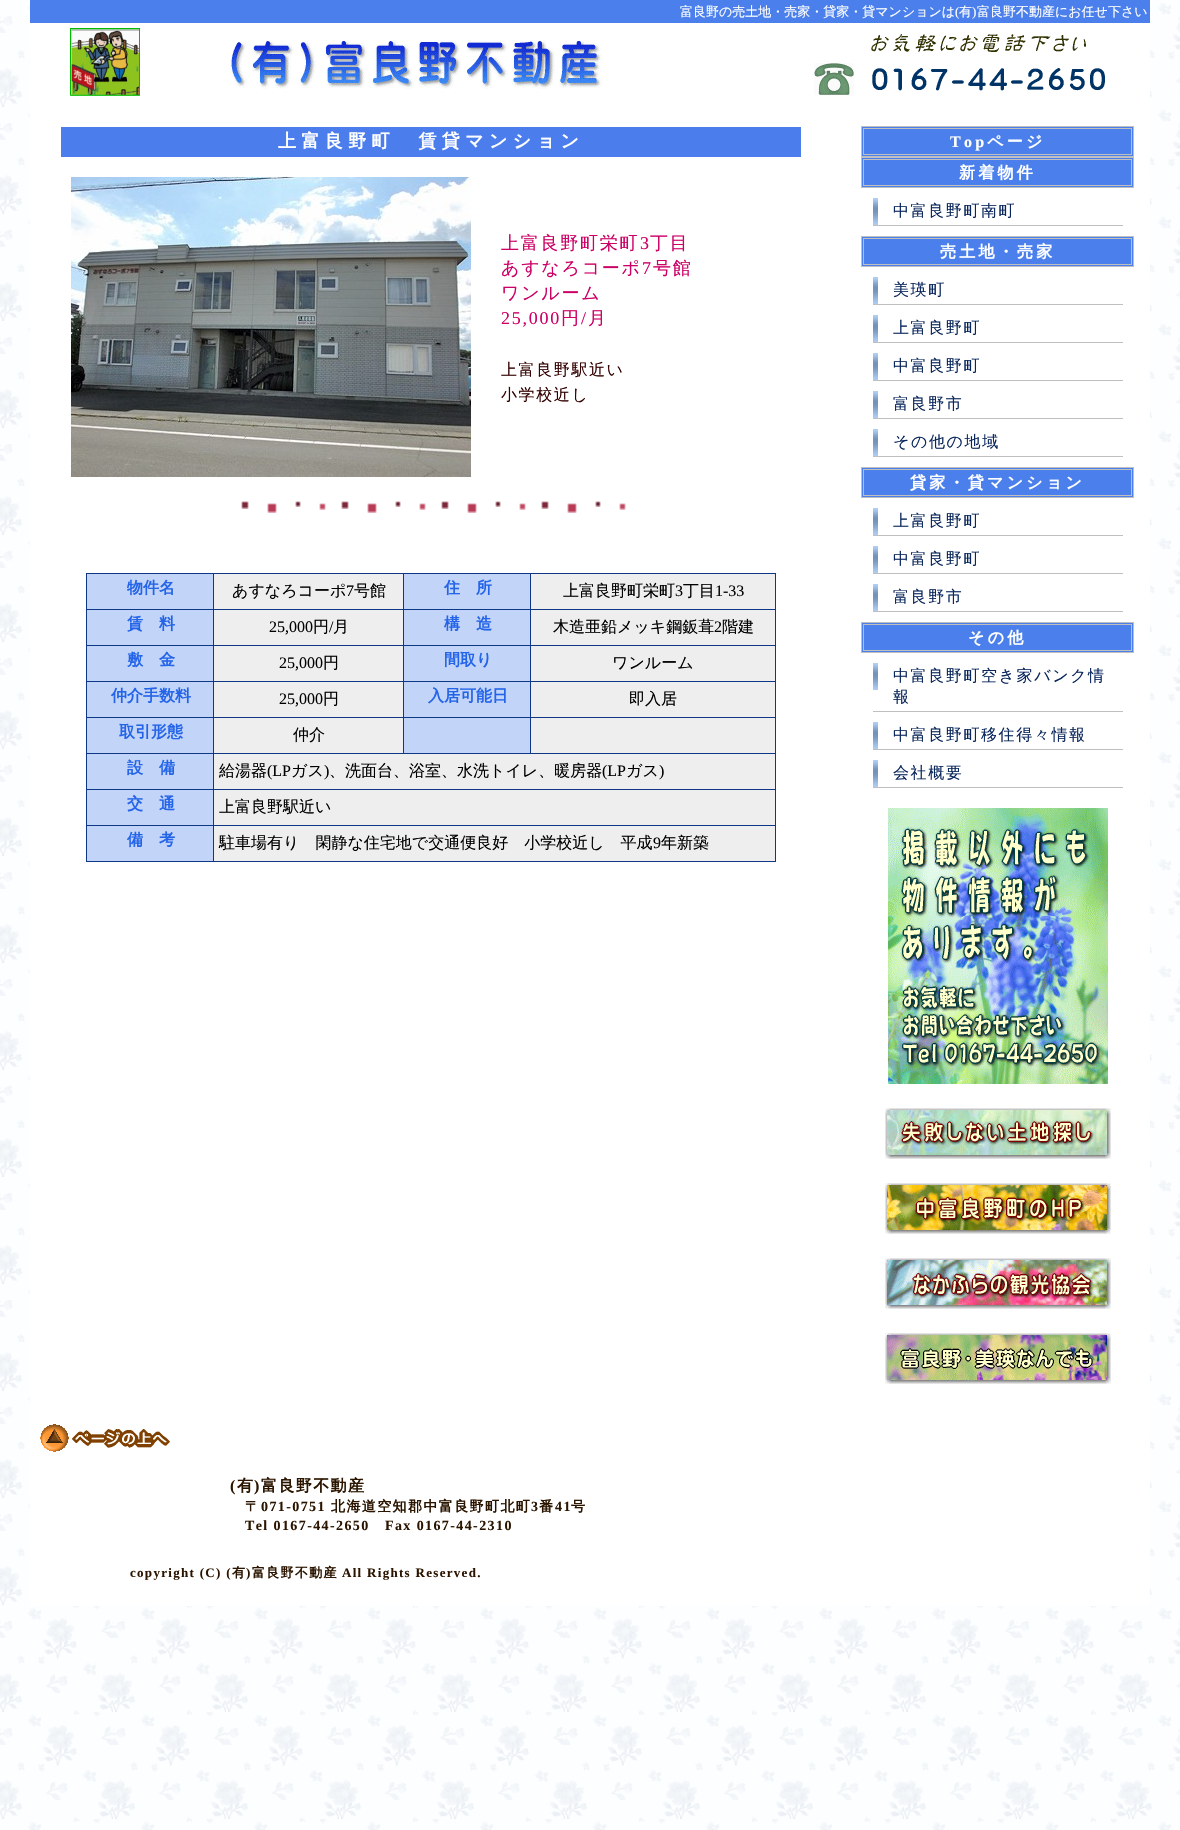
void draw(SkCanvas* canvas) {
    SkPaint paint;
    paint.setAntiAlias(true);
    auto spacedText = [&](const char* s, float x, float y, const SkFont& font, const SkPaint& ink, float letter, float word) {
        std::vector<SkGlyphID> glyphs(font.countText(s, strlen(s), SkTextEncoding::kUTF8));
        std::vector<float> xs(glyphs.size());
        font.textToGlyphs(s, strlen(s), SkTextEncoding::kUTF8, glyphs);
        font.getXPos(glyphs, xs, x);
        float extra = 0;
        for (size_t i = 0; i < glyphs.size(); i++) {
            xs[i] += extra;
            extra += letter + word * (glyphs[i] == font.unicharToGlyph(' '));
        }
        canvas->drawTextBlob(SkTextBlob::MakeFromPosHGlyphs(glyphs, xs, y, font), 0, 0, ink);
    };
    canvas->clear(0xFFFFFFFF);
    canvas->drawImageRect(SkImages::DeferredFromEncodedData(SkData::MakeFromFileName("img1.png")), SkRect::MakeXYWH(0, 0, 1180, 1830), SkSamplingOptions());
    paint.setColor(0xFFFFFFFF);
    canvas->drawRect(SkRect::MakeXYWH(30, 23, 1120, 1583), paint);
    paint.setColor(0xFF4A7FEC);
    canvas->drawRect(SkRect::MakeXYWH(30, 0, 1120, 23), paint);
    SkFont font1(fontMgr->matchFamilyStyle("WenQuanYi Zen Hei", SkFontStyle(500, SkFontStyle::kNormal_Width, SkFontStyle::kUpright_Slant)), 13);
    font1.setSubpixel(true);
    paint.setColor(0xFFFFFFFF);
    canvas->drawString("富良野の売土地・売家・貸家・貸マンションは", 680, 16, font1, paint);
    SkFont font2(fontMgr->matchFamilyStyle("Liberation Serif", SkFontStyle::Normal()), 13);
    font2.setSubpixel(true);
    canvas->drawString("(", 955, 16, font2, paint);
    canvas->drawString("有", 959, 16, font1, paint);
    canvas->drawString(")", 972, 16, font2, paint);
    canvas->drawString("富良野不動産にお任せ下さい", 977, 16, font1, paint);
    canvas->drawImageRect(SkImages::DeferredFromEncodedData(SkData::MakeFromFileName("img2.png")), SkRect::MakeXYWH(70, 28, 1035, 68), SkSamplingOptions());
    paint.setColor(0xFF4B7EEC);
    canvas->drawRect(SkRect::MakeXYWH(61, 127, 740, 30), paint);
    SkFont font3(fontMgr->matchFamilyStyle("WenQuanYi Zen Hei", SkFontStyle::Bold()), 18);
    font3.setSubpixel(true);
    paint.setColor(0xFFFFFFFF);
    spacedText("上富良野町　賃貸マンション", 278, 147, font3, paint, 5.4f, 0);
    canvas->drawImageRect(SkImages::DeferredFromEncodedData(SkData::MakeFromFileName("img3.png")), SkRect::MakeXYWH(71, 177, 400, 300), SkSamplingOptions());
    SkFont font4(fontMgr->matchFamilyStyle("WenQuanYi Zen Hei", SkFontStyle(500, SkFontStyle::kNormal_Width, SkFontStyle::kUpright_Slant)), 18);
    font4.setSubpixel(true);
    paint.setColor(0xFFCC0066);
    spacedText("上富良野町栄町", 501, 249, font4, paint, 1.75f, 0);
    SkFont font5(fontMgr->matchFamilyStyle("Liberation Serif", SkFontStyle::Normal()), 18);
    font5.setSubpixel(true);
    spacedText("3", 640, 249, font5, paint, 1.75f, 0);
    spacedText("丁目", 650, 249, font4, paint, 1.75f, 0);
    spacedText("あすなろコーポ", 501, 274, font4, paint, 1.75f, 0);
    spacedText("7", 642, 274, font5, paint, 1.75f, 0);
    spacedText("号館", 653, 274, font4, paint, 1.75f, 0);
    spacedText("ワンルーム", 501, 299, font4, paint, 1.75f, 0);
    spacedText("25,000", 501, 324, font5, paint, 1.75f, 0);
    spacedText("円", 561, 324, font4, paint, 1.75f, 0);
    spacedText("/", 581, 324, font5, paint, 1.75f, 0);
    spacedText("月", 588, 324, font4, paint, 1.75f, 0);
    SkFont font6(fontMgr->matchFamilyStyle("WenQuanYi Zen Hei", SkFontStyle(500, SkFontStyle::kNormal_Width, SkFontStyle::kUpright_Slant)), 16);
    font6.setSubpixel(true);
    paint.setColor(0xFF330000);
    spacedText("上富良野駅近い", 501, 375, font6, paint, 1.6f, 0);
    spacedText("小学校近し", 501, 400, font6, paint, 1.6f, 0);
    canvas->drawImageRect(SkImages::DeferredFromEncodedData(SkData::MakeFromFileName("img4.png")), SkRect::MakeXYWH(241, 501, 385, 12), SkSamplingOptions());
    paint.setColor(0xFFC2D5F8);
    canvas->drawRect(SkRect::MakeXYWH(87, 574, 126, 35), paint);
    paint.setColor(0xFF0E3885);
    canvas->drawRect(SkRect::MakeXYWH(530, 573, 246, 1), paint);
    canvas->drawRect(SkRect::MakeXYWH(530, 609, 246, 1), paint);
    canvas->drawRect(SkRect::MakeXYWH(530, 645, 246, 1), paint);
    canvas->drawRect(SkRect::MakeXYWH(530, 681, 246, 1), paint);
    canvas->drawRect(SkRect::MakeXYWH(530, 717, 246, 1), paint);
    canvas->drawRect(SkRect::MakeXYWH(213, 753, 563, 1), paint);
    canvas->drawRect(SkRect::MakeXYWH(530, 717, 1, 37), paint);
    canvas->drawRect(SkRect::MakeXYWH(403, 717, 128, 1), paint);
    canvas->drawRect(SkRect::MakeXYWH(530, 681, 1, 37), paint);
    canvas->drawRect(SkRect::MakeXYWH(403, 681, 128, 1), paint);
    canvas->drawRect(SkRect::MakeXYWH(530, 645, 1, 37), paint);
    canvas->drawRect(SkRect::MakeXYWH(403, 645, 128, 1), paint);
    canvas->drawRect(SkRect::MakeXYWH(530, 609, 1, 37), paint);
    canvas->drawRect(SkRect::MakeXYWH(403, 609, 128, 1), paint);
    canvas->drawRect(SkRect::MakeXYWH(530, 573, 1, 37), paint);
    canvas->drawRect(SkRect::MakeXYWH(403, 573, 128, 1), paint);
    canvas->drawRect(SkRect::MakeXYWH(403, 717, 1, 37), paint);
    canvas->drawRect(SkRect::MakeXYWH(213, 717, 191, 1), paint);
    canvas->drawRect(SkRect::MakeXYWH(403, 681, 1, 37), paint);
    canvas->drawRect(SkRect::MakeXYWH(213, 681, 191, 1), paint);
    canvas->drawRect(SkRect::MakeXYWH(403, 645, 1, 37), paint);
    canvas->drawRect(SkRect::MakeXYWH(213, 645, 191, 1), paint);
    canvas->drawRect(SkRect::MakeXYWH(403, 609, 1, 37), paint);
    canvas->drawRect(SkRect::MakeXYWH(213, 609, 191, 1), paint);
    canvas->drawRect(SkRect::MakeXYWH(403, 573, 1, 37), paint);
    canvas->drawRect(SkRect::MakeXYWH(213, 573, 191, 1), paint);
    canvas->drawRect(SkRect::MakeXYWH(213, 789, 563, 1), paint);
    canvas->drawRect(SkRect::MakeXYWH(213, 825, 563, 1), paint);
    canvas->drawRect(SkRect::MakeXYWH(775, 825, 1, 37), paint);
    canvas->drawRect(SkRect::MakeXYWH(213, 861, 563, 1), paint);
    canvas->drawRect(SkRect::MakeXYWH(213, 825, 1, 37), paint);
    canvas->drawRect(SkRect::MakeXYWH(86, 825, 128, 1), paint);
    canvas->drawRect(SkRect::MakeXYWH(213, 789, 1, 37), paint);
    canvas->drawRect(SkRect::MakeXYWH(86, 789, 128, 1), paint);
    canvas->drawRect(SkRect::MakeXYWH(213, 753, 1, 37), paint);
    canvas->drawRect(SkRect::MakeXYWH(86, 753, 128, 1), paint);
    canvas->drawRect(SkRect::MakeXYWH(213, 717, 1, 37), paint);
    canvas->drawRect(SkRect::MakeXYWH(86, 717, 128, 1), paint);
    canvas->drawRect(SkRect::MakeXYWH(213, 681, 1, 37), paint);
    canvas->drawRect(SkRect::MakeXYWH(86, 681, 128, 1), paint);
    canvas->drawRect(SkRect::MakeXYWH(213, 645, 1, 37), paint);
    canvas->drawRect(SkRect::MakeXYWH(86, 645, 128, 1), paint);
    canvas->drawRect(SkRect::MakeXYWH(213, 609, 1, 37), paint);
    canvas->drawRect(SkRect::MakeXYWH(86, 609, 128, 1), paint);
    canvas->drawRect(SkRect::MakeXYWH(213, 573, 1, 37), paint);
    canvas->drawRect(SkRect::MakeXYWH(86, 573, 128, 1), paint);
    canvas->drawRect(SkRect::MakeXYWH(86, 861, 128, 1), paint);
    canvas->drawRect(SkRect::MakeXYWH(86, 825, 1, 37), paint);
    canvas->drawRect(SkRect::MakeXYWH(86, 789, 1, 37), paint);
    canvas->drawRect(SkRect::MakeXYWH(86, 753, 1, 37), paint);
    canvas->drawRect(SkRect::MakeXYWH(86, 717, 1, 37), paint);
    canvas->drawRect(SkRect::MakeXYWH(86, 681, 1, 37), paint);
    canvas->drawRect(SkRect::MakeXYWH(86, 645, 1, 37), paint);
    canvas->drawRect(SkRect::MakeXYWH(86, 609, 1, 37), paint);
    canvas->drawRect(SkRect::MakeXYWH(86, 573, 1, 37), paint);
    SkFont font7(fontMgr->matchFamilyStyle("WenQuanYi Zen Hei", SkFontStyle::Bold()), 16);
    font7.setSubpixel(true);
    paint.setColor(0xFF2464E8);
    canvas->drawString("物件名", 127, 593, font7, paint);
    paint.setColor(0xFFEEEEEE);
    canvas->drawRect(SkRect::MakeXYWH(214, 574, 189, 35), paint);
    paint.setColor(0xFF000000);
    canvas->drawString("あすなろコーポ", 232, 596, font6, paint);
    SkFont font8(fontMgr->matchFamilyStyle("Liberation Serif", SkFontStyle::Normal()), 16);
    font8.setSubpixel(true);
    canvas->drawString("7", 346, 596, font8, paint);
    canvas->drawString("号館", 354, 596, font6, paint);
    paint.setColor(0xFFC2D5F8);
    canvas->drawRect(SkRect::MakeXYWH(404, 574, 126, 35), paint);
    paint.setColor(0xFF2464E8);
    canvas->drawString("住　所", 444, 593, font7, paint);
    paint.setColor(0xFFEEEEEE);
    canvas->drawRect(SkRect::MakeXYWH(531, 574, 244, 35), paint);
    paint.setColor(0xFF0E3885);
    canvas->drawRect(SkRect::MakeXYWH(775, 789, 1, 37), paint);
    canvas->drawRect(SkRect::MakeXYWH(775, 753, 1, 37), paint);
    canvas->drawRect(SkRect::MakeXYWH(775, 717, 1, 37), paint);
    canvas->drawRect(SkRect::MakeXYWH(775, 681, 1, 37), paint);
    canvas->drawRect(SkRect::MakeXYWH(775, 645, 1, 37), paint);
    canvas->drawRect(SkRect::MakeXYWH(775, 609, 1, 37), paint);
    canvas->drawRect(SkRect::MakeXYWH(775, 573, 1, 37), paint);
    paint.setColor(0xFF000000);
    canvas->drawString("上富良野町栄町", 563, 596, font6, paint);
    canvas->drawString("3", 675, 596, font8, paint);
    canvas->drawString("丁目", 683, 596, font6, paint);
    canvas->drawString("1-33", 715, 596, font8, paint);
    paint.setColor(0xFFC2D5F8);
    canvas->drawRect(SkRect::MakeXYWH(87, 610, 126, 35), paint);
    paint.setColor(0xFF2464E8);
    canvas->drawString("賃　料", 127, 629, font7, paint);
    paint.setColor(0xFFEEEEEE);
    canvas->drawRect(SkRect::MakeXYWH(214, 610, 189, 35), paint);
    paint.setColor(0xFF000000);
    canvas->drawString("25,000", 269, 632, font8, paint);
    canvas->drawString("円", 313, 632, font6, paint);
    canvas->drawString("/", 329, 632, font8, paint);
    canvas->drawString("月", 333, 632, font6, paint);
    paint.setColor(0xFFC2D5F8);
    canvas->drawRect(SkRect::MakeXYWH(404, 610, 126, 35), paint);
    paint.setColor(0xFF2464E8);
    canvas->drawString("構　造", 444, 629, font7, paint);
    paint.setColor(0xFFEEEEEE);
    canvas->drawRect(SkRect::MakeXYWH(531, 610, 244, 35), paint);
    paint.setColor(0xFF000000);
    canvas->drawString("木造亜鉛メッキ鋼鈑葺", 553, 632, font6, paint);
    canvas->drawString("2", 714, 632, font8, paint);
    canvas->drawString("階建", 722, 632, font6, paint);
    paint.setColor(0xFFC2D5F8);
    canvas->drawRect(SkRect::MakeXYWH(87, 646, 126, 35), paint);
    paint.setColor(0xFF2464E8);
    canvas->drawString("敷　金", 127, 665, font7, paint);
    paint.setColor(0xFFEEEEEE);
    canvas->drawRect(SkRect::MakeXYWH(214, 646, 189, 35), paint);
    paint.setColor(0xFF000000);
    canvas->drawString("25,000", 279, 668, font8, paint);
    canvas->drawString("円", 323, 668, font6, paint);
    paint.setColor(0xFFC2D5F8);
    canvas->drawRect(SkRect::MakeXYWH(404, 646, 126, 35), paint);
    paint.setColor(0xFF2464E8);
    canvas->drawString("間取り", 444, 665, font7, paint);
    paint.setColor(0xFFEEEEEE);
    canvas->drawRect(SkRect::MakeXYWH(531, 646, 244, 35), paint);
    paint.setColor(0xFF000000);
    canvas->drawString("ワンルーム", 612, 668, font6, paint);
    paint.setColor(0xFFC2D5F8);
    canvas->drawRect(SkRect::MakeXYWH(87, 682, 126, 35), paint);
    paint.setColor(0xFF2464E8);
    canvas->drawString("仲介手数料", 111, 701, font7, paint);
    paint.setColor(0xFFEEEEEE);
    canvas->drawRect(SkRect::MakeXYWH(214, 682, 189, 35), paint);
    paint.setColor(0xFF000000);
    canvas->drawString("25,000", 279, 704, font8, paint);
    canvas->drawString("円", 323, 704, font6, paint);
    paint.setColor(0xFFC2D5F8);
    canvas->drawRect(SkRect::MakeXYWH(404, 682, 126, 35), paint);
    paint.setColor(0xFF2464E8);
    canvas->drawString("入居可能日", 428, 701, font7, paint);
    paint.setColor(0xFFEEEEEE);
    canvas->drawRect(SkRect::MakeXYWH(531, 682, 244, 35), paint);
    paint.setColor(0xFF000000);
    canvas->drawString("即入居", 629, 704, font6, paint);
    paint.setColor(0xFFC2D5F8);
    canvas->drawRect(SkRect::MakeXYWH(87, 718, 126, 35), paint);
    paint.setColor(0xFF2464E8);
    canvas->drawString("取引形態", 119, 737, font7, paint);
    paint.setColor(0xFFEEEEEE);
    canvas->drawRect(SkRect::MakeXYWH(214, 718, 189, 35), paint);
    paint.setColor(0xFF000000);
    canvas->drawString("仲介", 293, 740, font6, paint);
    paint.setColor(0xFFC2D5F8);
    canvas->drawRect(SkRect::MakeXYWH(404, 718, 126, 35), paint);
    paint.setColor(0xFFEEEEEE);
    canvas->drawRect(SkRect::MakeXYWH(531, 718, 244, 35), paint);
    paint.setColor(0xFFC2D5F8);
    canvas->drawRect(SkRect::MakeXYWH(87, 754, 126, 35), paint);
    paint.setColor(0xFF2464E8);
    canvas->drawString("設　備", 127, 773, font7, paint);
    paint.setColor(0xFFEEEEEE);
    canvas->drawRect(SkRect::MakeXYWH(214, 754, 561, 35), paint);
    paint.setColor(0xFF000000);
    canvas->drawString("給湯器", 219, 776, font6, paint);
    canvas->drawString("(LP", 267, 776, font8, paint);
    canvas->drawString("ガス", 291, 776, font6, paint);
    canvas->drawString(")", 324, 776, font8, paint);
    canvas->drawString("、洗面台、浴室、水洗トイレ、暖房器", 329, 776, font6, paint);
    canvas->drawString("(LP", 602, 776, font8, paint);
    canvas->drawString("ガス", 626, 776, font6, paint);
    canvas->drawString(")", 659, 776, font8, paint);
    paint.setColor(0xFFC2D5F8);
    canvas->drawRect(SkRect::MakeXYWH(87, 790, 126, 35), paint);
    paint.setColor(0xFF2464E8);
    canvas->drawString("交　通", 127, 809, font7, paint);
    paint.setColor(0xFFEEEEEE);
    canvas->drawRect(SkRect::MakeXYWH(214, 790, 561, 35), paint);
    paint.setColor(0xFF000000);
    canvas->drawString("上富良野駅近い", 219, 812, font6, paint);
    paint.setColor(0xFFC2D5F8);
    canvas->drawRect(SkRect::MakeXYWH(87, 826, 126, 35), paint);
    paint.setColor(0xFF2464E8);
    canvas->drawString("備　考", 127, 845, font7, paint);
    paint.setColor(0xFFEEEEEE);
    canvas->drawRect(SkRect::MakeXYWH(214, 826, 561, 35), paint);
    paint.setColor(0xFF000000);
    canvas->drawString("駐車場有り　閑静な住宅地で交通便良好　小学校近し　平成", 219, 848, font6, paint);
    canvas->drawString("9", 653, 848, font8, paint);
    canvas->drawString("年新築", 661, 848, font6, paint);
    paint.setColor(0xFF4A7FEC);
    canvas->drawRect(SkRect::MakeXYWH(861.5f, 126.5f, 272, 30), paint);
    paint.setStyle(SkPaint::kStroke_Style);
    paint.setStrokeWidth(1);
    paint.setColor(0xFFBFBFBF);
    canvas->drawRect(SkRect::MakeXYWH(861.5f, 126.5f, 272, 30), paint);
    canvas->drawRect(SkRect::MakeXYWH(863.5f, 128.5f, 268, 26), paint);
    SkFont font9(fontMgr->matchFamilyStyle("Liberation Serif", SkFontStyle::Bold()), 16);
    font9.setSubpixel(true);
    paint.setStyle(SkPaint::kFill_Style);
    paint.setColor(0xFFFFFFFF);
    spacedText("Top", 950, 147, font9, paint, 3.25f, 0);
    spacedText("ページ", 987, 147, font7, paint, 3.25f, 0);
    paint.setColor(0xFF4A7FEC);
    canvas->drawRect(SkRect::MakeXYWH(861.5f, 157.5f, 272, 30), paint);
    paint.setStyle(SkPaint::kStroke_Style);
    paint.setColor(0xFFBFBFBF);
    canvas->drawRect(SkRect::MakeXYWH(861.5f, 157.5f, 272, 30), paint);
    canvas->drawRect(SkRect::MakeXYWH(863.5f, 159.5f, 268, 26), paint);
    paint.setStyle(SkPaint::kFill_Style);
    paint.setColor(0xFFFFFFFF);
    spacedText("新着物件", 959, 178, font7, paint, 3.25f, 0);
    canvas->drawImageRect(SkImages::DeferredFromEncodedData(SkData::MakeFromFileName("img5.png")), SkRect::MakeXYWH(873, 198, 5, 27), SkSamplingOptions());
    paint.setColor(0xFFBFBFBF);
    canvas->drawRect(SkRect::MakeXYWH(873, 225, 250, 1), paint);
    paint.setColor(0xFF0A275C);
    spacedText("中富良野町南町", 893, 216, font6, paint, 1.6f, 0);
    paint.setColor(0xFF4A7FEC);
    canvas->drawRect(SkRect::MakeXYWH(861.5f, 236.5f, 272, 30), paint);
    paint.setStyle(SkPaint::kStroke_Style);
    paint.setColor(0xFFBFBFBF);
    canvas->drawRect(SkRect::MakeXYWH(861.5f, 236.5f, 272, 30), paint);
    canvas->drawRect(SkRect::MakeXYWH(863.5f, 238.5f, 268, 26), paint);
    paint.setStyle(SkPaint::kFill_Style);
    paint.setColor(0xFFFFFFFF);
    spacedText("売土地・売家", 940, 257, font7, paint, 3.25f, 0);
    canvas->drawImageRect(SkImages::DeferredFromEncodedData(SkData::MakeFromFileName("img5.png")), SkRect::MakeXYWH(873, 277, 5, 27), SkSamplingOptions());
    paint.setColor(0xFFBFBFBF);
    canvas->drawRect(SkRect::MakeXYWH(873, 304, 250, 1), paint);
    paint.setColor(0xFF0A275C);
    spacedText("美瑛町", 893, 295, font6, paint, 1.6f, 0);
    canvas->drawImageRect(SkImages::DeferredFromEncodedData(SkData::MakeFromFileName("img5.png")), SkRect::MakeXYWH(873, 315, 5, 27), SkSamplingOptions());
    paint.setColor(0xFFBFBFBF);
    canvas->drawRect(SkRect::MakeXYWH(873, 342, 250, 1), paint);
    paint.setColor(0xFF0A275C);
    spacedText("上富良野町", 893, 333, font6, paint, 1.6f, 0);
    canvas->drawImageRect(SkImages::DeferredFromEncodedData(SkData::MakeFromFileName("img5.png")), SkRect::MakeXYWH(873, 353, 5, 27), SkSamplingOptions());
    paint.setColor(0xFFBFBFBF);
    canvas->drawRect(SkRect::MakeXYWH(873, 380, 250, 1), paint);
    paint.setColor(0xFF0A275C);
    spacedText("中富良野町", 893, 371, font6, paint, 1.6f, 0);
    canvas->drawImageRect(SkImages::DeferredFromEncodedData(SkData::MakeFromFileName("img5.png")), SkRect::MakeXYWH(873, 391, 5, 27), SkSamplingOptions());
    paint.setColor(0xFFBFBFBF);
    canvas->drawRect(SkRect::MakeXYWH(873, 418, 250, 1), paint);
    paint.setColor(0xFF0A275C);
    spacedText("富良野市", 893, 409, font6, paint, 1.6f, 0);
    canvas->drawImageRect(SkImages::DeferredFromEncodedData(SkData::MakeFromFileName("img5.png")), SkRect::MakeXYWH(873, 429, 5, 27), SkSamplingOptions());
    paint.setColor(0xFFBFBFBF);
    canvas->drawRect(SkRect::MakeXYWH(873, 456, 250, 1), paint);
    paint.setColor(0xFF0A275C);
    spacedText("その他の地域", 893, 447, font6, paint, 1.6f, 0);
    paint.setColor(0xFF4A7FEC);
    canvas->drawRect(SkRect::MakeXYWH(861.5f, 467.5f, 272, 30), paint);
    paint.setStyle(SkPaint::kStroke_Style);
    paint.setColor(0xFFBFBFBF);
    canvas->drawRect(SkRect::MakeXYWH(861.5f, 467.5f, 272, 30), paint);
    canvas->drawRect(SkRect::MakeXYWH(863.5f, 469.5f, 268, 26), paint);
    paint.setStyle(SkPaint::kFill_Style);
    paint.setColor(0xFFFFFFFF);
    spacedText("貸家・貸マンション", 910, 488, font7, paint, 3.25f, 0);
    canvas->drawImageRect(SkImages::DeferredFromEncodedData(SkData::MakeFromFileName("img5.png")), SkRect::MakeXYWH(873, 508, 5, 27), SkSamplingOptions());
    paint.setColor(0xFFBFBFBF);
    canvas->drawRect(SkRect::MakeXYWH(873, 535, 250, 1), paint);
    paint.setColor(0xFF0A275C);
    spacedText("上富良野町", 893, 526, font6, paint, 1.6f, 0);
    canvas->drawImageRect(SkImages::DeferredFromEncodedData(SkData::MakeFromFileName("img5.png")), SkRect::MakeXYWH(873, 546, 5, 27), SkSamplingOptions());
    paint.setColor(0xFFBFBFBF);
    canvas->drawRect(SkRect::MakeXYWH(873, 573, 250, 1), paint);
    paint.setColor(0xFF0A275C);
    spacedText("中富良野町", 893, 564, font6, paint, 1.6f, 0);
    canvas->drawImageRect(SkImages::DeferredFromEncodedData(SkData::MakeFromFileName("img5.png")), SkRect::MakeXYWH(873, 584, 5, 27), SkSamplingOptions());
    paint.setColor(0xFFBFBFBF);
    canvas->drawRect(SkRect::MakeXYWH(873, 611, 250, 1), paint);
    paint.setColor(0xFF0A275C);
    spacedText("富良野市", 893, 602, font6, paint, 1.6f, 0);
    paint.setColor(0xFF4A7FEC);
    canvas->drawRect(SkRect::MakeXYWH(861.5f, 622.5f, 272, 30), paint);
    paint.setStyle(SkPaint::kStroke_Style);
    paint.setColor(0xFFBFBFBF);
    canvas->drawRect(SkRect::MakeXYWH(861.5f, 622.5f, 272, 30), paint);
    canvas->drawRect(SkRect::MakeXYWH(863.5f, 624.5f, 268, 26), paint);
    paint.setStyle(SkPaint::kFill_Style);
    paint.setColor(0xFFFFFFFF);
    spacedText("その他", 968, 643, font7, paint, 3.25f, 0);
    canvas->drawImageRect(SkImages::DeferredFromEncodedData(SkData::MakeFromFileName("img5.png")), SkRect::MakeXYWH(873, 663, 5, 27), SkSamplingOptions());
    paint.setColor(0xFFBFBFBF);
    canvas->drawRect(SkRect::MakeXYWH(873, 711, 250, 1), paint);
    paint.setColor(0xFF0A275C);
    spacedText("中富良野町空き家バンク情", 893, 681, font6, paint, 1.6f, 0);
    spacedText("報", 893, 702, font6, paint, 1.6f, 0);
    canvas->drawImageRect(SkImages::DeferredFromEncodedData(SkData::MakeFromFileName("img5.png")), SkRect::MakeXYWH(873, 722, 5, 27), SkSamplingOptions());
    paint.setColor(0xFFBFBFBF);
    canvas->drawRect(SkRect::MakeXYWH(873, 749, 250, 1), paint);
    paint.setColor(0xFF0A275C);
    spacedText("中富良野町移住得々情報", 893, 740, font6, paint, 1.6f, 0);
    canvas->drawImageRect(SkImages::DeferredFromEncodedData(SkData::MakeFromFileName("img5.png")), SkRect::MakeXYWH(873, 760, 5, 27), SkSamplingOptions());
    paint.setColor(0xFFBFBFBF);
    canvas->drawRect(SkRect::MakeXYWH(873, 787, 250, 1), paint);
    paint.setColor(0xFF0A275C);
    spacedText("会社概要", 893, 778, font6, paint, 1.6f, 0);
    canvas->drawImageRect(SkImages::DeferredFromEncodedData(SkData::MakeFromFileName("img6.png")), SkRect::MakeXYWH(888, 808, 220, 276), SkSamplingOptions());
    canvas->drawImageRect(SkImages::DeferredFromEncodedData(SkData::MakeFromFileName("img7.png")), SkRect::MakeXYWH(885, 1108, 226, 51), SkSamplingOptions());
    canvas->drawImageRect(SkImages::DeferredFromEncodedData(SkData::MakeFromFileName("img8.png")), SkRect::MakeXYWH(885, 1183, 226, 51), SkSamplingOptions());
    canvas->drawImageRect(SkImages::DeferredFromEncodedData(SkData::MakeFromFileName("img9.png")), SkRect::MakeXYWH(885, 1258, 226, 51), SkSamplingOptions());
    canvas->drawImageRect(SkImages::DeferredFromEncodedData(SkData::MakeFromFileName("img10.png")), SkRect::MakeXYWH(885, 1333, 226, 51), SkSamplingOptions());
    canvas->drawImageRect(SkImages::DeferredFromEncodedData(SkData::MakeFromFileName("img11.png")), SkRect::MakeXYWH(40, 1424, 130, 28), SkSamplingOptions());
    paint.setColor(0xFF2B1500);
    spacedText("(", 230, 1491, font9, paint, 1.4f, 0);
    spacedText("有", 237, 1491, font7, paint, 1.4f, 0);
    spacedText(")", 254, 1491, font9, paint, 1.4f, 0);
    spacedText("富良野不動産", 261, 1491, font7, paint, 1.4f, 0);
    SkFont font10(fontMgr->matchFamilyStyle("WenQuanYi Zen Hei", SkFontStyle::Bold()), 14);
    font10.setSubpixel(true);
    spacedText("〒", 245, 1511, font10, paint, 1.4f, 0);
    SkFont font11(fontMgr->matchFamilyStyle("Liberation Serif", SkFontStyle::Bold()), 14);
    font11.setSubpixel(true);
    spacedText("071-0751", 261, 1511, font11, paint, 1.4f, 0);
    spacedText("北海道空知郡中富良野町北町", 331, 1511, font10, paint, 1.4f, 0);
    spacedText("3", 531, 1511, font11, paint, 1.4f, 0);
    spacedText("番", 539, 1511, font10, paint, 1.4f, 0);
    spacedText("41", 555, 1511, font11, paint, 1.4f, 0);
    spacedText("号", 571, 1511, font10, paint, 1.4f, 0);
    spacedText("Tel 0167-44-2650", 245, 1530, font11, paint, 1.4f, 0);
    spacedText("Fax 0167-44-2310", 385, 1530, font11, paint, 1.4f, 0);
    SkFont font12(fontMgr->matchFamilyStyle("Liberation Serif", SkFontStyle::Bold()), 13);
    font12.setSubpixel(true);
    spacedText("copyright (C) (", 130, 1577, font12, paint, 1.3f, 0);
    SkFont font13(fontMgr->matchFamilyStyle("WenQuanYi Zen Hei", SkFontStyle::Bold()), 13);
    font13.setSubpixel(true);
    spacedText("有", 232, 1577, font13, paint, 1.3f, 0);
    spacedText(")", 246, 1577, font12, paint, 1.3f, 0);
    spacedText("富良野不動産", 252, 1577, font13, paint, 1.3f, 0);
    spacedText("All Rights Reserved.", 342, 1577, font12, paint, 1.3f, 0);
}
